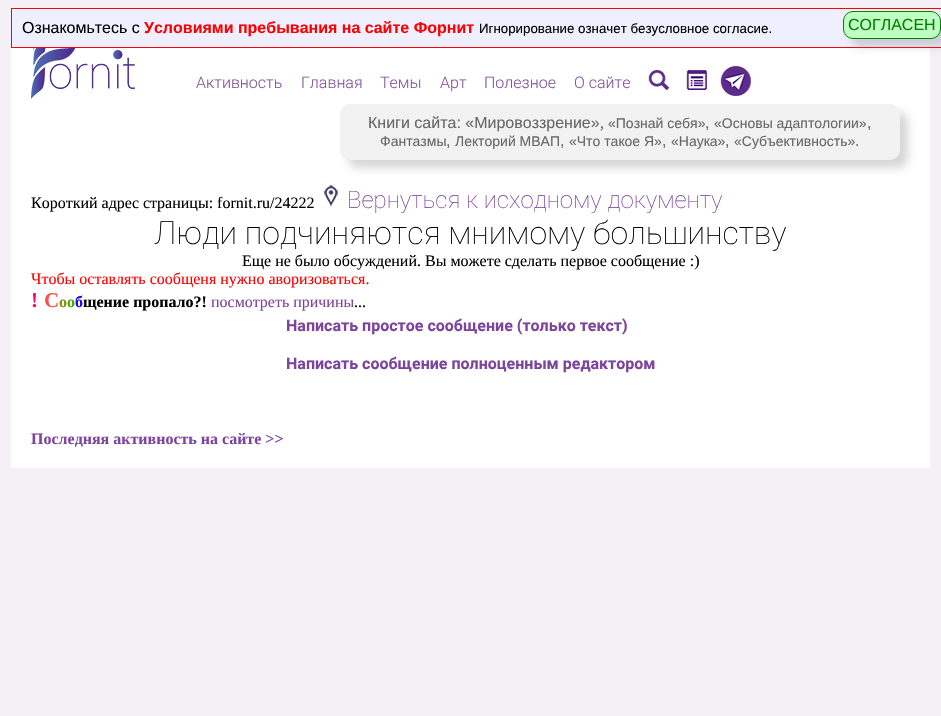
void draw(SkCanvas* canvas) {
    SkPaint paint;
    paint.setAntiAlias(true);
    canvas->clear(0xFFF5F0F5);
    paint.setColor(0xFFFFFFFF);
    canvas->drawRect(SkRect::MakeXYWH(11, 48, 919, 420), paint);
    paint.setColor(0xFFEFEFFF);
    canvas->drawRect(SkRect::MakeXYWH(11.5f, 8.5f, 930, 39), paint);
    paint.setStyle(SkPaint::kStroke_Style);
    paint.setStrokeWidth(1);
    paint.setColor(0xFFFF0000);
    canvas->drawRect(SkRect::MakeXYWH(11.5f, 8.5f, 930, 39), paint);
    SkFont font1(fontMgr->matchFamilyStyle("Liberation Sans", SkFontStyle::Normal()), 16);
    font1.setSubpixel(true);
    paint.setStyle(SkPaint::kFill_Style);
    paint.setColor(0xFF000000);
    canvas->drawString("Ознакомьтесь с", 22, 33, font1, paint);
    SkFont font2(fontMgr->matchFamilyStyle("Liberation Sans", SkFontStyle::Bold()), 16);
    font2.setSubpixel(true);
    paint.setColor(0xFFFF0000);
    canvas->drawString("Условиями пребывания на сайте Форнит", 144, 33, font2, paint);
    SkFont font3(fontMgr->matchFamilyStyle("Liberation Sans", SkFontStyle::Normal()), 13.3f);
    font3.setSubpixel(true);
    paint.setColor(0xFF000000);
    canvas->drawString("Игнорирование означет безусловное согласие.", 479, 33, font3, paint);
    paint.setColor(0x4D7A7A7A);
    paint.setMaskFilter(SkMaskFilter::MakeBlur(kNormal_SkBlurStyle, 4));
    canvas->drawRoundRect(SkRect::MakeXYWH(851, 19, 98, 28), 10, 10, paint);
    paint.setMaskFilter(nullptr);
    paint.setColor(0xFFBFFFC1);
    canvas->drawRoundRect(SkRect::MakeXYWH(843.5f, 11.5f, 97, 27), 9.5f, 9.5f, paint);
    paint.setStyle(SkPaint::kStroke_Style);
    paint.setColor(0xFF008000);
    canvas->drawRoundRect(SkRect::MakeXYWH(843.5f, 11.5f, 97, 27), 9.5f, 9.5f, paint);
    paint.setStyle(SkPaint::kFill_Style);
    canvas->drawString("СОГЛАСЕН", 848, 30, font1, paint);
    canvas->drawImageRect(SkImages::DeferredFromEncodedData(SkData::MakeFromFileName("img1.png")), SkRect::MakeXYWH(31, 48, 104, 51), SkSamplingOptions());
    SkFont font4(fontMgr->matchFamilyStyle("Roboto", SkFontStyle(300, SkFontStyle::kNormal_Width, SkFontStyle::kUpright_Slant)), 16);
    font4.setSubpixel(true);
    paint.setColor(0xFF855598);
    canvas->drawString("Активность", 196, 88, font4, paint);
    canvas->drawString("Главная", 301, 88, font4, paint);
    canvas->drawString("Темы", 380, 88, font4, paint);
    canvas->drawString("Арт", 440, 88, font4, paint);
    canvas->drawString("Полезное", 484, 88, font4, paint);
    canvas->drawString("О сайте", 574, 88, font4, paint);
    canvas->drawImageRect(SkImages::DeferredFromEncodedData(SkData::MakeFromFileName("img2.png")), SkRect::MakeXYWH(648, 70, 21, 20), SkSamplingOptions());
    canvas->drawImageRect(SkImages::DeferredFromEncodedData(SkData::MakeFromFileName("img3.png")), SkRect::MakeXYWH(686, 70, 21, 20), SkSamplingOptions());
    canvas->drawImageRect(SkImages::DeferredFromEncodedData(SkData::MakeFromFileName("img4.png")), SkRect::MakeXYWH(720, 66, 31, 30), SkSamplingOptions());
    paint.setColor(0x4D7A7A7A);
    paint.setMaskFilter(SkMaskFilter::MakeBlur(kNormal_SkBlurStyle, 4));
    canvas->drawRoundRect(SkRect::MakeXYWH(348, 112, 560, 56), 10, 10, paint);
    paint.setMaskFilter(nullptr);
    paint.setColor(0xFFF2F2F2);
    canvas->drawRoundRect(SkRect::MakeXYWH(340, 104, 560, 56), 10, 10, paint);
    paint.setColor(0xFF666666);
    canvas->drawString("Книги сайта: «Мировоззрение»", 368, 128, font1, paint);
    SkFont font5(fontMgr->matchFamilyStyle("Liberation Serif", SkFontStyle::Normal()), 16);
    font5.setSubpixel(true);
    canvas->drawString(",", 600, 128, font5, paint);
    SkFont font6(fontMgr->matchFamilyStyle("Liberation Sans", SkFontStyle::Normal()), 14);
    font6.setSubpixel(true);
    canvas->drawString("«Познай себя»", 608, 128, font6, paint);
    canvas->drawString(",", 705, 128, font1, paint);
    canvas->drawString("«Основы адаптологии»", 714, 128, font6, paint);
    canvas->drawString(",", 867, 128, font1, paint);
    canvas->drawString("Фантазмы", 380, 146, font6, paint);
    canvas->drawString(",", 446, 146, font1, paint);
    canvas->drawString("Лекторий МВАП", 455, 146, font6, paint);
    canvas->drawString(",", 560, 146, font1, paint);
    canvas->drawString("«Что такое Я»", 569, 146, font6, paint);
    canvas->drawString(",", 662, 146, font1, paint);
    canvas->drawString("«Наука»", 671, 146, font6, paint);
    canvas->drawString(",", 725, 146, font1, paint);
    canvas->drawString("«Субъективность»", 734, 146, font6, paint);
    canvas->drawString(".", 855, 146, font1, paint);
    paint.setColor(0xFF000000);
    canvas->drawString("Короткий адрес страницы: fornit.ru/24222", 31, 208, font5, paint);
    canvas->drawImageRect(SkImages::DeferredFromEncodedData(SkData::MakeFromFileName("img5.png")), SkRect::MakeXYWH(324, 185, 14, 22), SkSamplingOptions());
    SkFont font7(fontMgr->matchFamilyStyle("Roboto", SkFontStyle(100, SkFontStyle::kNormal_Width, SkFontStyle::kUpright_Slant)), 24);
    font7.setSubpixel(true);
    paint.setColor(0xFF7D449D);
    canvas->drawString("Вернуться к исходному документу", 347, 208, font7, paint);
    SkFont font8(fontMgr->matchFamilyStyle("Roboto", SkFontStyle(100, SkFontStyle::kNormal_Width, SkFontStyle::kUpright_Slant)), 32);
    font8.setSubpixel(true);
    paint.setColor(0xFF000000);
    canvas->drawString("Люди подчиняются мнимому большинству", 154, 244, font8, paint);
    canvas->drawString("Еще не было обсуждений. Вы можете сделать первое сообщение :)", 242, 266, font5, paint);
    paint.setColor(0xFFFF0000);
    canvas->drawString("Чтобы оставлять сообщеня нужно аворизоваться.", 31, 284, font5, paint);
    SkFont font9(fontMgr->matchFamilyStyle("Liberation Serif", SkFontStyle::Bold()), 21);
    font9.setSubpixel(true);
    paint.setColor(0xFFFF0066);
    canvas->drawString("!", 31, 307, font9, paint);
    paint.setColor(0xFFFF5050);
    canvas->drawString("С", 44, 307, font9, paint);
    SkFont font10(fontMgr->matchFamilyStyle("Liberation Serif", SkFontStyle::Bold()), 16);
    font10.setSubpixel(true);
    paint.setColor(0xFF8A8D01);
    canvas->drawString("о", 59, 307, font10, paint);
    paint.setColor(0xFF3FAE02);
    canvas->drawString("о", 67, 307, font10, paint);
    paint.setColor(0xFF1604FC);
    canvas->drawString("б", 75, 307, font10, paint);
    paint.setColor(0xFF000000);
    canvas->drawString("щение пропало?!", 83, 307, font10, paint);
    paint.setColor(0xFF7D449D);
    canvas->drawString("посмотреть причины", 211, 307, font5, paint);
    paint.setColor(0xFF000000);
    canvas->drawString("...", 354, 307, font5, paint);
    SkFont font11(fontMgr->matchFamilyStyle("Roboto", SkFontStyle::Bold()), 16);
    font11.setSubpixel(true);
    paint.setColor(0xFF7D449D);
    canvas->drawString("Написать простое сообщение (только текст)", 286, 331, font11, paint);
    canvas->drawString("Написать сообщение полноценным редактором", 286, 369, font11, paint);
    canvas->drawString("Последняя активность на сайте >>", 31, 444, font10, paint);
}
